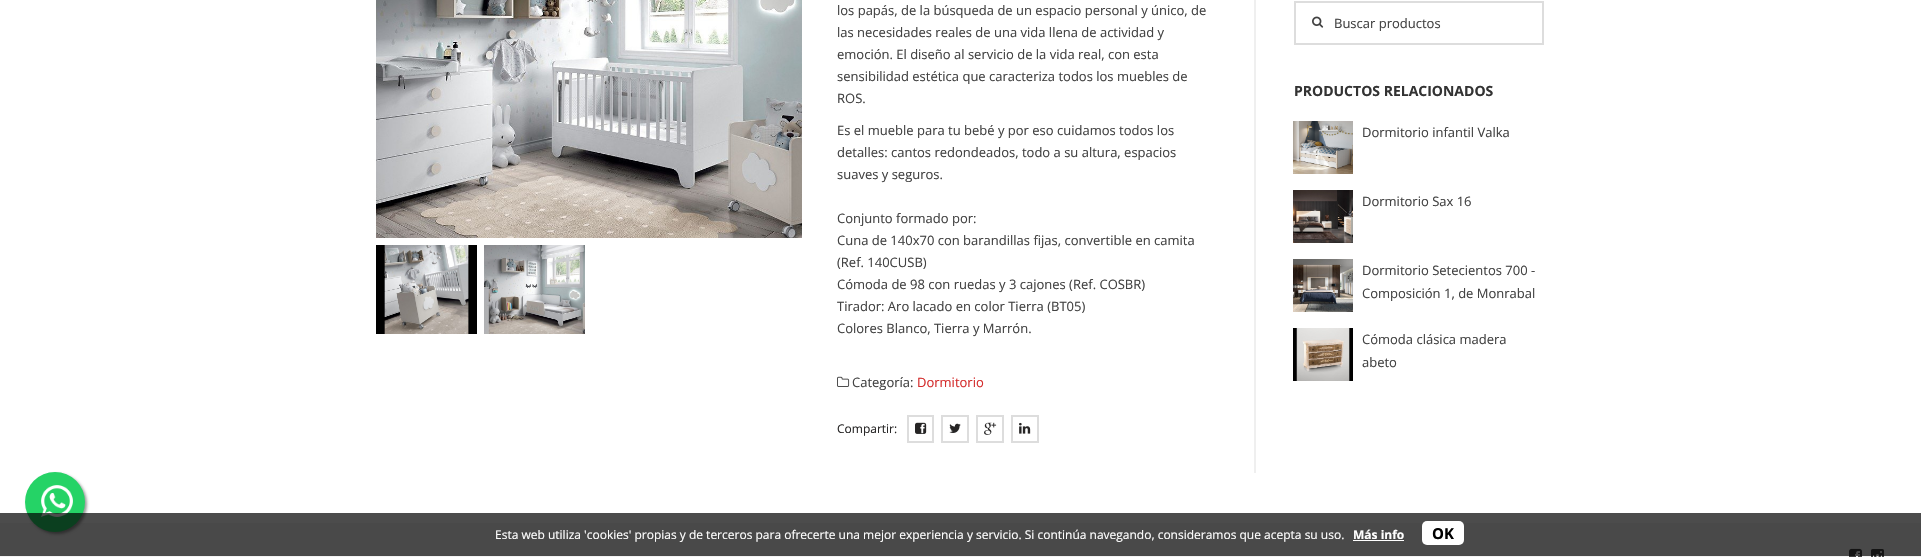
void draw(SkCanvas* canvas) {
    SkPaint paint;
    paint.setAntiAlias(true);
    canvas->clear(0xFFFFFFFF);
    canvas->drawImageRect(SkImages::DeferredFromEncodedData(SkData::MakeFromFileName("img1.png")), SkRect::MakeXYWH(376, 0, 426, 238), SkSamplingOptions());
    canvas->drawImageRect(SkImages::DeferredFromEncodedData(SkData::MakeFromFileName("img2.png")), SkRect::MakeXYWH(376, 245, 101, 89), SkSamplingOptions());
    canvas->drawImageRect(SkImages::DeferredFromEncodedData(SkData::MakeFromFileName("img3.png")), SkRect::MakeXYWH(484, 245, 101, 89), SkSamplingOptions());
    SkFont font1(fontMgr->matchFamilyStyle("Open Sans", SkFontStyle::Normal()), 13);
    font1.setSubpixel(true);
    paint.setColor(0xFF424242);
    canvas->drawString("los papás, de la búsqueda de un espacio personal y único, de", 837, 15, font1, paint);
    canvas->drawString("las necesidades reales de una vida llena de actividad y", 837, 37, font1, paint);
    canvas->drawString("emoción. El diseño al servicio de la vida real, con esta", 837, 59, font1, paint);
    canvas->drawString("sensibilidad estética que caracteriza todos los muebles de", 837, 81, font1, paint);
    canvas->drawString("ROS.", 837, 103, font1, paint);
    canvas->drawString("Es el mueble para tu bebé y por eso cuidamos todos los", 837, 135, font1, paint);
    canvas->drawString("detalles: cantos redondeados, todo a su altura, espacios", 837, 157, font1, paint);
    canvas->drawString("suaves y seguros.", 837, 179, font1, paint);
    canvas->drawString("Conjunto formado por:", 837, 223, font1, paint);
    canvas->drawString("Cuna de 140x70 con barandillas fijas, convertible en camita", 837, 245, font1, paint);
    canvas->drawString("(Ref. 140CUSB)", 837, 267, font1, paint);
    canvas->drawString("Cómoda de 98 con ruedas y 3 cajones (Ref. COSBR)", 837, 289, font1, paint);
    canvas->drawString("Tirador: Aro lacado en color Tierra (BT05)", 837, 311, font1, paint);
    canvas->drawString("Colores Blanco, Tierra y Marrón.", 837, 333, font1, paint);
    canvas->drawImageRect(SkImages::DeferredFromEncodedData(SkData::MakeFromFileName("img4.png")), SkRect::MakeXYWH(837, 376, 13, 11), SkSamplingOptions());
    canvas->drawString("Categoría:", 852, 387, font1, paint);
    paint.setColor(0xFFD42D2D);
    canvas->drawString("Dormitorio", 917, 387, font1, paint);
    SkFont font2(fontMgr->matchFamilyStyle("Open Sans", SkFontStyle::Normal()), 12);
    font2.setSubpixel(true);
    paint.setColor(0xFF262525);
    canvas->drawString("Compartir:", 837, 433, font2, paint);
    paint.setStyle(SkPaint::kStroke_Style);
    paint.setStrokeWidth(2);
    paint.setColor(0xFFDDDDDD);
    canvas->drawRect(SkRect::MakeXYWH(908, 416, 25, 26), paint);
    canvas->drawImageRect(SkImages::DeferredFromEncodedData(SkData::MakeFromFileName("img5.png")), SkRect::MakeXYWH(915, 422, 12, 12), SkSamplingOptions());
    canvas->drawRect(SkRect::MakeXYWH(942, 416, 26, 26), paint);
    canvas->drawImageRect(SkImages::DeferredFromEncodedData(SkData::MakeFromFileName("img6.png")), SkRect::MakeXYWH(949, 423, 12, 10), SkSamplingOptions());
    canvas->drawRect(SkRect::MakeXYWH(977, 416, 26, 26), paint);
    canvas->drawImageRect(SkImages::DeferredFromEncodedData(SkData::MakeFromFileName("img7.png")), SkRect::MakeXYWH(984, 422, 13, 13), SkSamplingOptions());
    canvas->drawRect(SkRect::MakeXYWH(1012, 416, 26, 26), paint);
    canvas->drawImageRect(SkImages::DeferredFromEncodedData(SkData::MakeFromFileName("img8.png")), SkRect::MakeXYWH(1019, 422, 12, 12), SkSamplingOptions());
    paint.setStyle(SkPaint::kFill_Style);
    paint.setColor(0xFFEFEFEF);
    canvas->drawRect(SkRect::MakeXYWH(1254, 0, 2, 473), paint);
    paint.setStyle(SkPaint::kStroke_Style);
    paint.setColor(0xFFDDDDDD);
    canvas->drawRect(SkRect::MakeXYWH(1295, 2, 248, 42), paint);
    canvas->drawImageRect(SkImages::DeferredFromEncodedData(SkData::MakeFromFileName("img9.png")), SkRect::MakeXYWH(1312, 16, 12, 12), SkSamplingOptions());
    paint.setStyle(SkPaint::kFill_Style);
    paint.setColor(0xFF424242);
    canvas->drawString("Buscar productos", 1334, 28, font1, paint);
    SkFont font3(fontMgr->matchFamilyStyle("Open Sans", SkFontStyle::Bold()), 14);
    font3.setSubpixel(true);
    paint.setColor(0xFF333333);
    canvas->drawString("PRODUCTOS RELACIONADOS", 1294, 96, font3, paint);
    canvas->drawImageRect(SkImages::DeferredFromEncodedData(SkData::MakeFromFileName("img10.png")), SkRect::MakeXYWH(1293, 121, 60, 53), SkSamplingOptions());
    paint.setColor(0xFF424242);
    canvas->drawString("Dormitorio infantil Valka", 1362, 137, font1, paint);
    canvas->drawImageRect(SkImages::DeferredFromEncodedData(SkData::MakeFromFileName("img11.png")), SkRect::MakeXYWH(1293, 190, 60, 53), SkSamplingOptions());
    canvas->drawString("Dormitorio Sax 16", 1362, 206, font1, paint);
    canvas->drawImageRect(SkImages::DeferredFromEncodedData(SkData::MakeFromFileName("img12.png")), SkRect::MakeXYWH(1293, 259, 60, 53), SkSamplingOptions());
    canvas->drawString("Dormitorio Setecientos 700 -", 1362, 275, font1, paint);
    canvas->drawString("Composición 1, de Monrabal", 1362, 298, font1, paint);
    canvas->drawImageRect(SkImages::DeferredFromEncodedData(SkData::MakeFromFileName("img13.png")), SkRect::MakeXYWH(1293, 328, 60, 53), SkSamplingOptions());
    canvas->drawString("Cómoda clásica madera", 1362, 344, font1, paint);
    canvas->drawString("abeto", 1362, 367, font1, paint);
    paint.setColor(0xFFF3F3F3);
    canvas->drawRect(SkRect::MakeXYWH(0, 523, 1921, 34), paint);
    paint.setColor(0xFF999999);
    paint.setMaskFilter(SkMaskFilter::MakeBlur(kNormal_SkBlurStyle, 1.5f));
    canvas->drawRoundRect(SkRect::MakeXYWH(27, 474, 60, 60), 30, 30, paint);
    paint.setMaskFilter(nullptr);
    paint.setColor(0xFF25D366);
    canvas->drawCircle(55, 502, 30, paint);
    canvas->drawImageRect(SkImages::DeferredFromEncodedData(SkData::MakeFromFileName("img14.png")), SkRect::MakeXYWH(41, 485, 32, 32), SkSamplingOptions());
    canvas->drawImageRect(SkImages::DeferredFromEncodedData(SkData::MakeFromFileName("img15.png")), SkRect::MakeXYWH(1849, 548, 13, 9), SkSamplingOptions());
    canvas->drawImageRect(SkImages::DeferredFromEncodedData(SkData::MakeFromFileName("img16.png")), SkRect::MakeXYWH(1871, 549, 13, 8), SkSamplingOptions());
    paint.setColor(0xB3000000);
    canvas->drawRect(SkRect::MakeXYWH(0, 513, 1921, 43), paint);
    paint.setColor(0xFFFFFFFF);
    canvas->drawString("Esta web utiliza 'cookies' propias y de terceros para ofrecerte una mejor experiencia y servicio. Si continúa navegando, consideramos que acepta su uso.", 495, 539, font2, paint);
    SkFont font4(fontMgr->matchFamilyStyle("Open Sans", SkFontStyle::Bold()), 12);
    font4.setSubpixel(true);
    canvas->drawString("Más info", 1353, 539, font4, paint);
    canvas->drawRect(SkRect::MakeXYWH(1353, 540, 51, 1), paint);
    canvas->drawRoundRect(SkRect::MakeXYWH(1422, 521, 42, 24), 5, 5, paint);
    SkFont font5(fontMgr->matchFamilyStyle("Open Sans", SkFontStyle::Bold()), 15);
    font5.setSubpixel(true);
    paint.setColor(0xFF000000);
    canvas->drawString("OK", 1432, 539, font5, paint);
}
